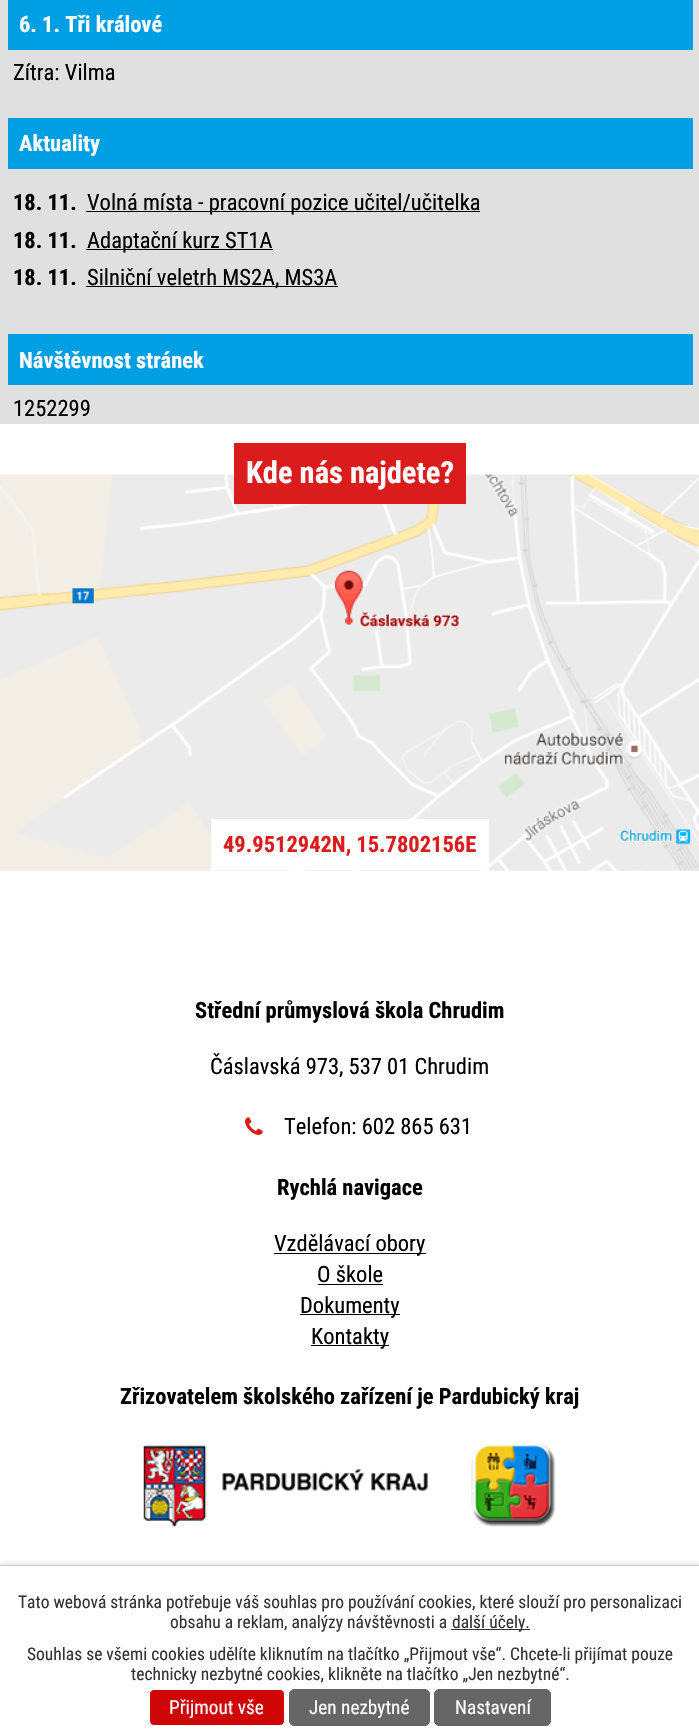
void draw(SkCanvas* canvas) {
    SkPaint paint;
    paint.setAntiAlias(true);
    canvas->clear(0xFFFFFFFF);
    paint.setColor(0xFFE0E0E0);
    canvas->drawRect(SkRect::MakeXYWH(0, 0, 699, 424), paint);
    paint.setColor(0xFF009FE3);
    canvas->drawRect(SkRect::MakeXYWH(8, 0, 685, 50), paint);
    SkFont font1(fontMgr->matchFamilyStyle("Roboto Condensed", SkFontStyle::Bold()), 22.5f);
    font1.setSubpixel(true);
    paint.setColor(0xFFFFFFFF);
    canvas->drawString("6. 1. Tři králové", 19, 32, font1, paint);
    SkFont font2(fontMgr->matchFamilyStyle("Roboto Condensed", SkFontStyle::Normal()), 22.5f);
    font2.setSubpixel(true);
    paint.setColor(0xFF000000);
    canvas->drawString("Zítra: Vilma", 13, 80, font2, paint);
    paint.setColor(0xFF009FE3);
    canvas->drawRect(SkRect::MakeXYWH(8, 118, 685, 51), paint);
    paint.setColor(0xFFFFFFFF);
    canvas->drawString("Aktuality", 19, 151, font1, paint);
    paint.setColor(0xFF000000);
    canvas->drawString("18. 11.", 13, 210, font1, paint);
    canvas->drawRect(SkRect::MakeXYWH(86, 211, 394, 1), paint);
    canvas->drawString("Volná místa - pracovní pozice učitel/učitelka", 87, 210, font2, paint);
    canvas->drawString("18. 11.", 13, 248, font1, paint);
    canvas->drawRect(SkRect::MakeXYWH(86, 249, 187, 1), paint);
    canvas->drawString("Adaptační kurz ST1A", 87, 248, font2, paint);
    canvas->drawString("18. 11.", 13, 285, font1, paint);
    canvas->drawRect(SkRect::MakeXYWH(86, 286, 252, 1), paint);
    canvas->drawString("Silniční veletrh MS2A, MS3A", 87, 285, font2, paint);
    paint.setColor(0xFF009FE3);
    canvas->drawRect(SkRect::MakeXYWH(8, 334, 685, 51), paint);
    paint.setColor(0xFFFFFFFF);
    canvas->drawString("Návštěvnost stránek", 19, 368, font1, paint);
    paint.setColor(0xFF000000);
    canvas->drawString("1252299", 13, 416, font2, paint);
    canvas->drawImageRect(SkImages::DeferredFromEncodedData(SkData::MakeFromFileName("img1.png")), SkRect::MakeXYWH(0, 474, 699, 397), SkSamplingOptions());
    paint.setColor(0xFFDB1C1C);
    canvas->drawRect(SkRect::MakeXYWH(234, 443, 232, 61), paint);
    SkFont font3(fontMgr->matchFamilyStyle("Roboto Condensed", SkFontStyle::Bold()), 30.5f);
    font3.setSubpixel(true);
    paint.setColor(0xFFFFFFFF);
    canvas->drawString("Kde nás najdete?", 246, 483, font3, paint);
    canvas->drawRect(SkRect::MakeXYWH(211, 819, 278, 51), paint);
    paint.setColor(0xFFDB1C1C);
    canvas->drawString("49.9512942N, 15.7802156E", 223, 852, font1, paint);
    paint.setColor(0xFF000000);
    canvas->drawString("Střední průmyslová škola Chrudim", 195, 1018, font1, paint);
    canvas->drawString("Čáslavská 973, 537 01 Chrudim", 210, 1074, font2, paint);
    canvas->drawImageRect(SkImages::DeferredFromEncodedData(SkData::MakeFromFileName("img2.png")), SkRect::MakeXYWH(245, 1117, 18, 18), SkSamplingOptions());
    canvas->drawString("Telefon: 602 865 631", 284, 1134, font2, paint);
    canvas->drawString("Rychlá navigace", 277, 1195, font1, paint);
    canvas->drawRect(SkRect::MakeXYWH(274, 1253, 152, 1), paint);
    canvas->drawString("Vzdělávací obory", 274, 1251, font2, paint);
    canvas->drawString("O škole", 317, 1282, font2, paint);
    canvas->drawRect(SkRect::MakeXYWH(318, 1284, 65, 1), paint);
    canvas->drawRect(SkRect::MakeXYWH(300, 1314, 100, 1), paint);
    canvas->drawString("Dokumenty", 300, 1313, font2, paint);
    canvas->drawRect(SkRect::MakeXYWH(311, 1345, 78, 1), paint);
    canvas->drawString("Kontakty", 311, 1344, font2, paint);
    canvas->drawString("Zřizovatelem školského zařízení je Pardubický kraj", 120, 1404, font1, paint);
    canvas->drawImageRect(SkImages::DeferredFromEncodedData(SkData::MakeFromFileName("img3.png")), SkRect::MakeXYWH(143, 1443, 413, 85), SkSamplingOptions());
    paint.setColor(0x33000000);
    paint.setMaskFilter(SkMaskFilter::MakeBlur(kNormal_SkBlurStyle, 3));
    canvas->drawRect(SkRect::MakeXYWH(0, 1565, 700, 166), paint);
    paint.setMaskFilter(nullptr);
    paint.setColor(0xFFFFFFFF);
    canvas->drawRect(SkRect::MakeXYWH(0, 1566, 699, 165), paint);
    paint.setColor(0xFFCCCCCC);
    canvas->drawRect(SkRect::MakeXYWH(0, 1565, 699, 1), paint);
    SkFont font4(fontMgr->matchFamilyStyle("Roboto Condensed", SkFontStyle::Normal()), 17.5f);
    font4.setSubpixel(true);
    paint.setColor(0xFF333333);
    canvas->drawString("Tato webová stránka potřebuje váš souhlas pro používání cookies, které slouží pro personalizaci", 18, 1608, font4, paint);
    canvas->drawString("obsahu a reklam, analýzy návštěvnosti a", 170, 1628, font4, paint);
    canvas->drawRect(SkRect::MakeXYWH(451, 1629, 79, 1), paint);
    canvas->drawString("další účely.", 452, 1628, font4, paint);
    canvas->drawString("Souhlas se všemi cookies udělíte kliknutím na tlačítko „Přijmout vše“. Chcete-li přijímat pouze", 27, 1660, font4, paint);
    canvas->drawString("technicky nezbytné cookies, klikněte na tlačítko „Jen nezbytné“.", 131, 1680, font4, paint);
    paint.setColor(0xFFCF0606);
    canvas->drawRoundRect(SkRect::MakeXYWH(149.5f, 1689.5f, 135, 36), 4.5f, 4.5f, paint);
    paint.setStyle(SkPaint::kStroke_Style);
    paint.setStrokeWidth(1);
    paint.setColor(0xFFFFFFFF);
    canvas->drawRoundRect(SkRect::MakeXYWH(149.5f, 1689.5f, 135, 36), 4.5f, 4.5f, paint);
    SkFont font5(fontMgr->matchFamilyStyle("Roboto Condensed", SkFontStyle::Normal()), 19.25f);
    font5.setSubpixel(true);
    paint.setStyle(SkPaint::kFill_Style);
    canvas->drawString("Přijmout vše", 169, 1714, font5, paint);
    paint.setColor(0xFF666666);
    canvas->drawRoundRect(SkRect::MakeXYWH(289.5f, 1689.5f, 140, 36), 4.5f, 4.5f, paint);
    paint.setStyle(SkPaint::kStroke_Style);
    canvas->drawRoundRect(SkRect::MakeXYWH(289.5f, 1689.5f, 140, 36), 4.5f, 4.5f, paint);
    paint.setStyle(SkPaint::kFill_Style);
    paint.setColor(0xFFFFFFFF);
    canvas->drawString("Jen nezbytné", 309, 1714, font5, paint);
    paint.setColor(0xFF666666);
    canvas->drawRoundRect(SkRect::MakeXYWH(434.5f, 1689.5f, 116, 36), 4.5f, 4.5f, paint);
    paint.setStyle(SkPaint::kStroke_Style);
    canvas->drawRoundRect(SkRect::MakeXYWH(434.5f, 1689.5f, 116, 36), 4.5f, 4.5f, paint);
    paint.setStyle(SkPaint::kFill_Style);
    paint.setColor(0xFFFFFFFF);
    canvas->drawString("Nastavení", 455, 1714, font5, paint);
}
